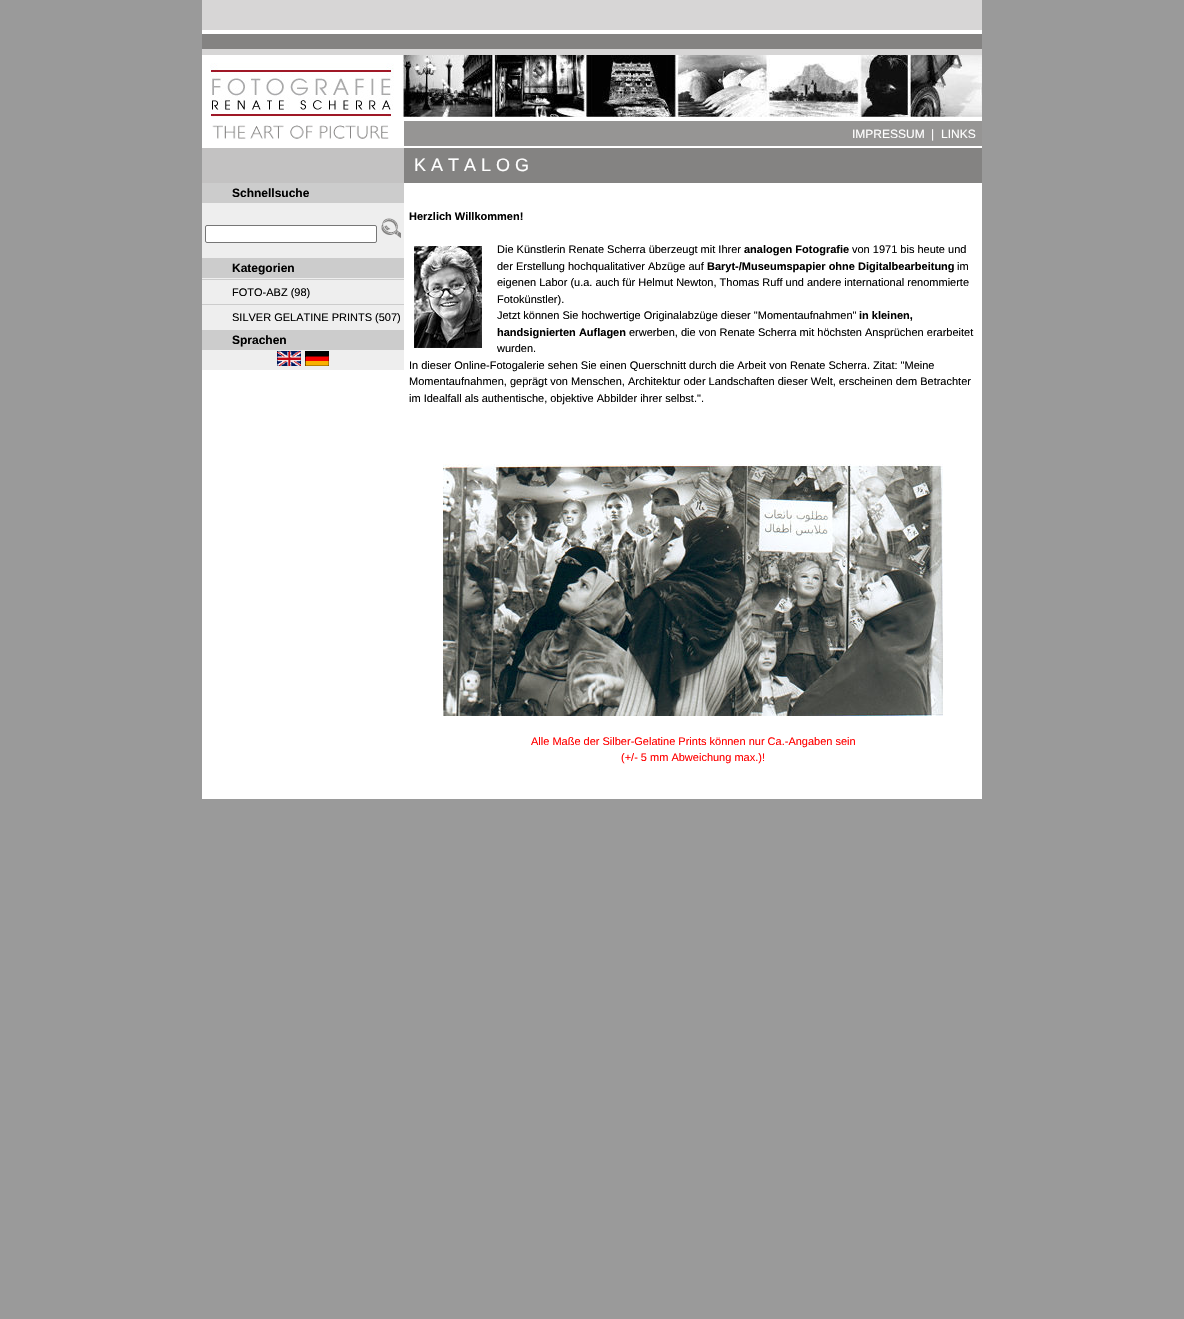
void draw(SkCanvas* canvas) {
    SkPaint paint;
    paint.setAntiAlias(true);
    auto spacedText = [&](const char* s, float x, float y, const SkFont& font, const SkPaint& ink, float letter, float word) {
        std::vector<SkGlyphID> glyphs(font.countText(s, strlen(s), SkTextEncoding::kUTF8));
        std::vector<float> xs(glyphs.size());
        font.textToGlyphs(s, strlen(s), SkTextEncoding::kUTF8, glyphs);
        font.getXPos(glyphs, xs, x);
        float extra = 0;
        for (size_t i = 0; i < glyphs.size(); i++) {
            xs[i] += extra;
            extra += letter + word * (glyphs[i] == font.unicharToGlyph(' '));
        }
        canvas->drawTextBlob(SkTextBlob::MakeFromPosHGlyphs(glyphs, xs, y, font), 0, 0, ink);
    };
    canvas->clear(0xFF9A9A9A);
    paint.setColor(0xFFFFFFFF);
    canvas->drawRect(SkRect::MakeXYWH(202, 30, 780, 769), paint);
    paint.setColor(0xFFD7D6D6);
    canvas->drawRect(SkRect::MakeXYWH(202, 0, 780, 30), paint);
    paint.setColor(0xFF848382);
    canvas->drawRect(SkRect::MakeXYWH(202, 34, 780, 15), paint);
    paint.setColor(0xFFD7D6D6);
    canvas->drawRect(SkRect::MakeXYWH(202, 49, 780, 6), paint);
    canvas->drawImageRect(SkImages::DeferredFromEncodedData(SkData::MakeFromFileName("img1.png")), SkRect::MakeXYWH(210, 55, 772, 62), SkSamplingOptions());
    canvas->drawImageRect(SkImages::DeferredFromEncodedData(SkData::MakeFromFileName("img2.png")), SkRect::MakeXYWH(212, 125, 177, 14), SkSamplingOptions());
    paint.setColor(0xFF969594);
    canvas->drawRect(SkRect::MakeXYWH(404, 121, 578, 25), paint);
    SkFont font1(fontMgr->matchFamilyStyle("Liberation Sans", SkFontStyle::Normal()), 12);
    font1.setSubpixel(true);
    paint.setColor(0xFFFFFFFF);
    canvas->drawString("IMPRESSUM", 852, 138, font1, paint);
    canvas->drawString("|", 931, 138, font1, paint);
    canvas->drawString("LINKS", 941, 138, font1, paint);
    paint.setColor(0xFFC3C2C2);
    canvas->drawRect(SkRect::MakeXYWH(202, 148, 202, 35), paint);
    paint.setColor(0xFF848382);
    canvas->drawRect(SkRect::MakeXYWH(404, 148, 578, 35), paint);
    SkFont font2(fontMgr->matchFamilyStyle("Liberation Sans", SkFontStyle::Normal()), 18);
    font2.setSubpixel(true);
    paint.setColor(0xFFFFFFFF);
    spacedText("KATALOG", 414, 171, font2, paint, 5, 0);
    paint.setColor(0xFFCCCCCC);
    canvas->drawRect(SkRect::MakeXYWH(202, 183, 202, 20), paint);
    SkFont font3(fontMgr->matchFamilyStyle("Liberation Sans", SkFontStyle::Bold()), 12);
    font3.setSubpixel(true);
    paint.setColor(0xFF000000);
    canvas->drawString("Schnellsuche", 232, 197, font3, paint);
    paint.setColor(0xFFEEEEEE);
    canvas->drawRect(SkRect::MakeXYWH(202, 203, 202, 55), paint);
    paint.setColor(0xFFFFFFFF);
    canvas->drawRoundRect(SkRect::MakeXYWH(205.5f, 225.5f, 171, 17), 1.5f, 1.5f, paint);
    paint.setStyle(SkPaint::kStroke_Style);
    paint.setStrokeWidth(1);
    paint.setColor(0xFF767676);
    canvas->drawRoundRect(SkRect::MakeXYWH(205.5f, 225.5f, 171, 17), 1.5f, 1.5f, paint);
    canvas->drawImageRect(SkImages::DeferredFromEncodedData(SkData::MakeFromFileName("img3.png")), SkRect::MakeXYWH(381, 218, 20, 20), SkSamplingOptions());
    paint.setStyle(SkPaint::kFill_Style);
    paint.setColor(0xFFCCCCCC);
    canvas->drawRect(SkRect::MakeXYWH(202, 258, 202, 20), paint);
    paint.setColor(0xFF000000);
    canvas->drawString("Kategorien", 232, 272, font3, paint);
    paint.setColor(0xFFEEEEEE);
    canvas->drawRect(SkRect::MakeXYWH(202, 278, 202, 52), paint);
    paint.setColor(0xFFCCCCCC);
    canvas->drawRect(SkRect::MakeXYWH(202, 279, 202, 1), paint);
    SkFont font4(fontMgr->matchFamilyStyle("Liberation Sans", SkFontStyle::Normal()), 11);
    font4.setSubpixel(true);
    paint.setColor(0xFF000000);
    canvas->drawString("FOTO-ABZ (98)", 232, 296, font4, paint);
    paint.setColor(0xFFCCCCCC);
    canvas->drawRect(SkRect::MakeXYWH(202, 304, 202, 1), paint);
    paint.setColor(0xFF000000);
    canvas->drawString("SILVER GELATINE PRINTS (507)", 232, 321, font4, paint);
    paint.setColor(0xFFCCCCCC);
    canvas->drawRect(SkRect::MakeXYWH(202, 330, 202, 20), paint);
    paint.setColor(0xFF000000);
    canvas->drawString("Sprachen", 232, 344, font3, paint);
    paint.setColor(0xFFEEEEEE);
    canvas->drawRect(SkRect::MakeXYWH(202, 350, 202, 20), paint);
    canvas->drawImageRect(SkImages::DeferredFromEncodedData(SkData::MakeFromFileName("img4.png")), SkRect::MakeXYWH(277, 351, 24, 15), SkSamplingOptions());
    canvas->drawImageRect(SkImages::DeferredFromEncodedData(SkData::MakeFromFileName("img5.png")), SkRect::MakeXYWH(305, 351, 24, 15), SkSamplingOptions());
    SkFont font5(fontMgr->matchFamilyStyle("Liberation Sans", SkFontStyle::Bold()), 11);
    font5.setSubpixel(true);
    paint.setColor(0xFF000000);
    canvas->drawString("Herzlich Willkommen!", 409, 220, font5, paint);
    canvas->drawImageRect(SkImages::DeferredFromEncodedData(SkData::MakeFromFileName("img6.png")), SkRect::MakeXYWH(414, 246, 68, 102), SkSamplingOptions());
    canvas->drawString("Die Künstlerin Renate Scherra überzeugt mit Ihrer", 497, 253, font4, paint);
    canvas->drawString("analogen Fotografie", 744, 253, font5, paint);
    canvas->drawString("von 1971 bis heute und", 852, 253, font4, paint);
    canvas->drawString("der Erstellung hochqualitativer Abzüge auf", 497, 270, font4, paint);
    canvas->drawString("Baryt-/Museumspapier ohne Digitalbearbeitung", 707, 270, font5, paint);
    canvas->drawString("im", 957, 270, font4, paint);
    canvas->drawString("eigenen Labor (u.a. auch für Helmut Newton, Thomas Ruff und andere international renommierte", 497, 286, font4, paint);
    canvas->drawString("Fotokünstler).", 497, 303, font4, paint);
    canvas->drawString("Jetzt können Sie hochwertige Originalabzüge dieser \"Momentaufnahmen\"", 497, 319, font4, paint);
    canvas->drawString("in kleinen,", 859, 319, font5, paint);
    canvas->drawString("handsignierten Auflagen", 497, 336, font5, paint);
    canvas->drawString("erwerben, die von Renate Scherra mit höchsten Ansprüchen erarbeitet", 629, 336, font4, paint);
    canvas->drawString("wurden.", 497, 352, font4, paint);
    canvas->drawString("In dieser Online-Fotogalerie sehen Sie einen Querschnitt durch die Arbeit von Renate Scherra. Zitat: \"Meine", 409, 369, font4, paint);
    canvas->drawString("Momentaufnahmen, geprägt von Menschen, Architektur oder Landschaften dieser Welt, erscheinen dem Betrachter", 409, 385, font4, paint);
    canvas->drawString("im Idealfall als authentische, objektive Abbilder ihrer selbst.\".", 409, 402, font4, paint);
    canvas->drawImageRect(SkImages::DeferredFromEncodedData(SkData::MakeFromFileName("img7.png")), SkRect::MakeXYWH(443, 464, 500, 252), SkSamplingOptions());
    paint.setColor(0xFFFF0000);
    canvas->drawString("Alle Maße der Silber-Gelatine Prints können nur Ca.-Angaben sein", 531, 745, font4, paint);
    canvas->drawString("(+/- 5 mm Abweichung max.)!", 621, 761, font4, paint);
}
